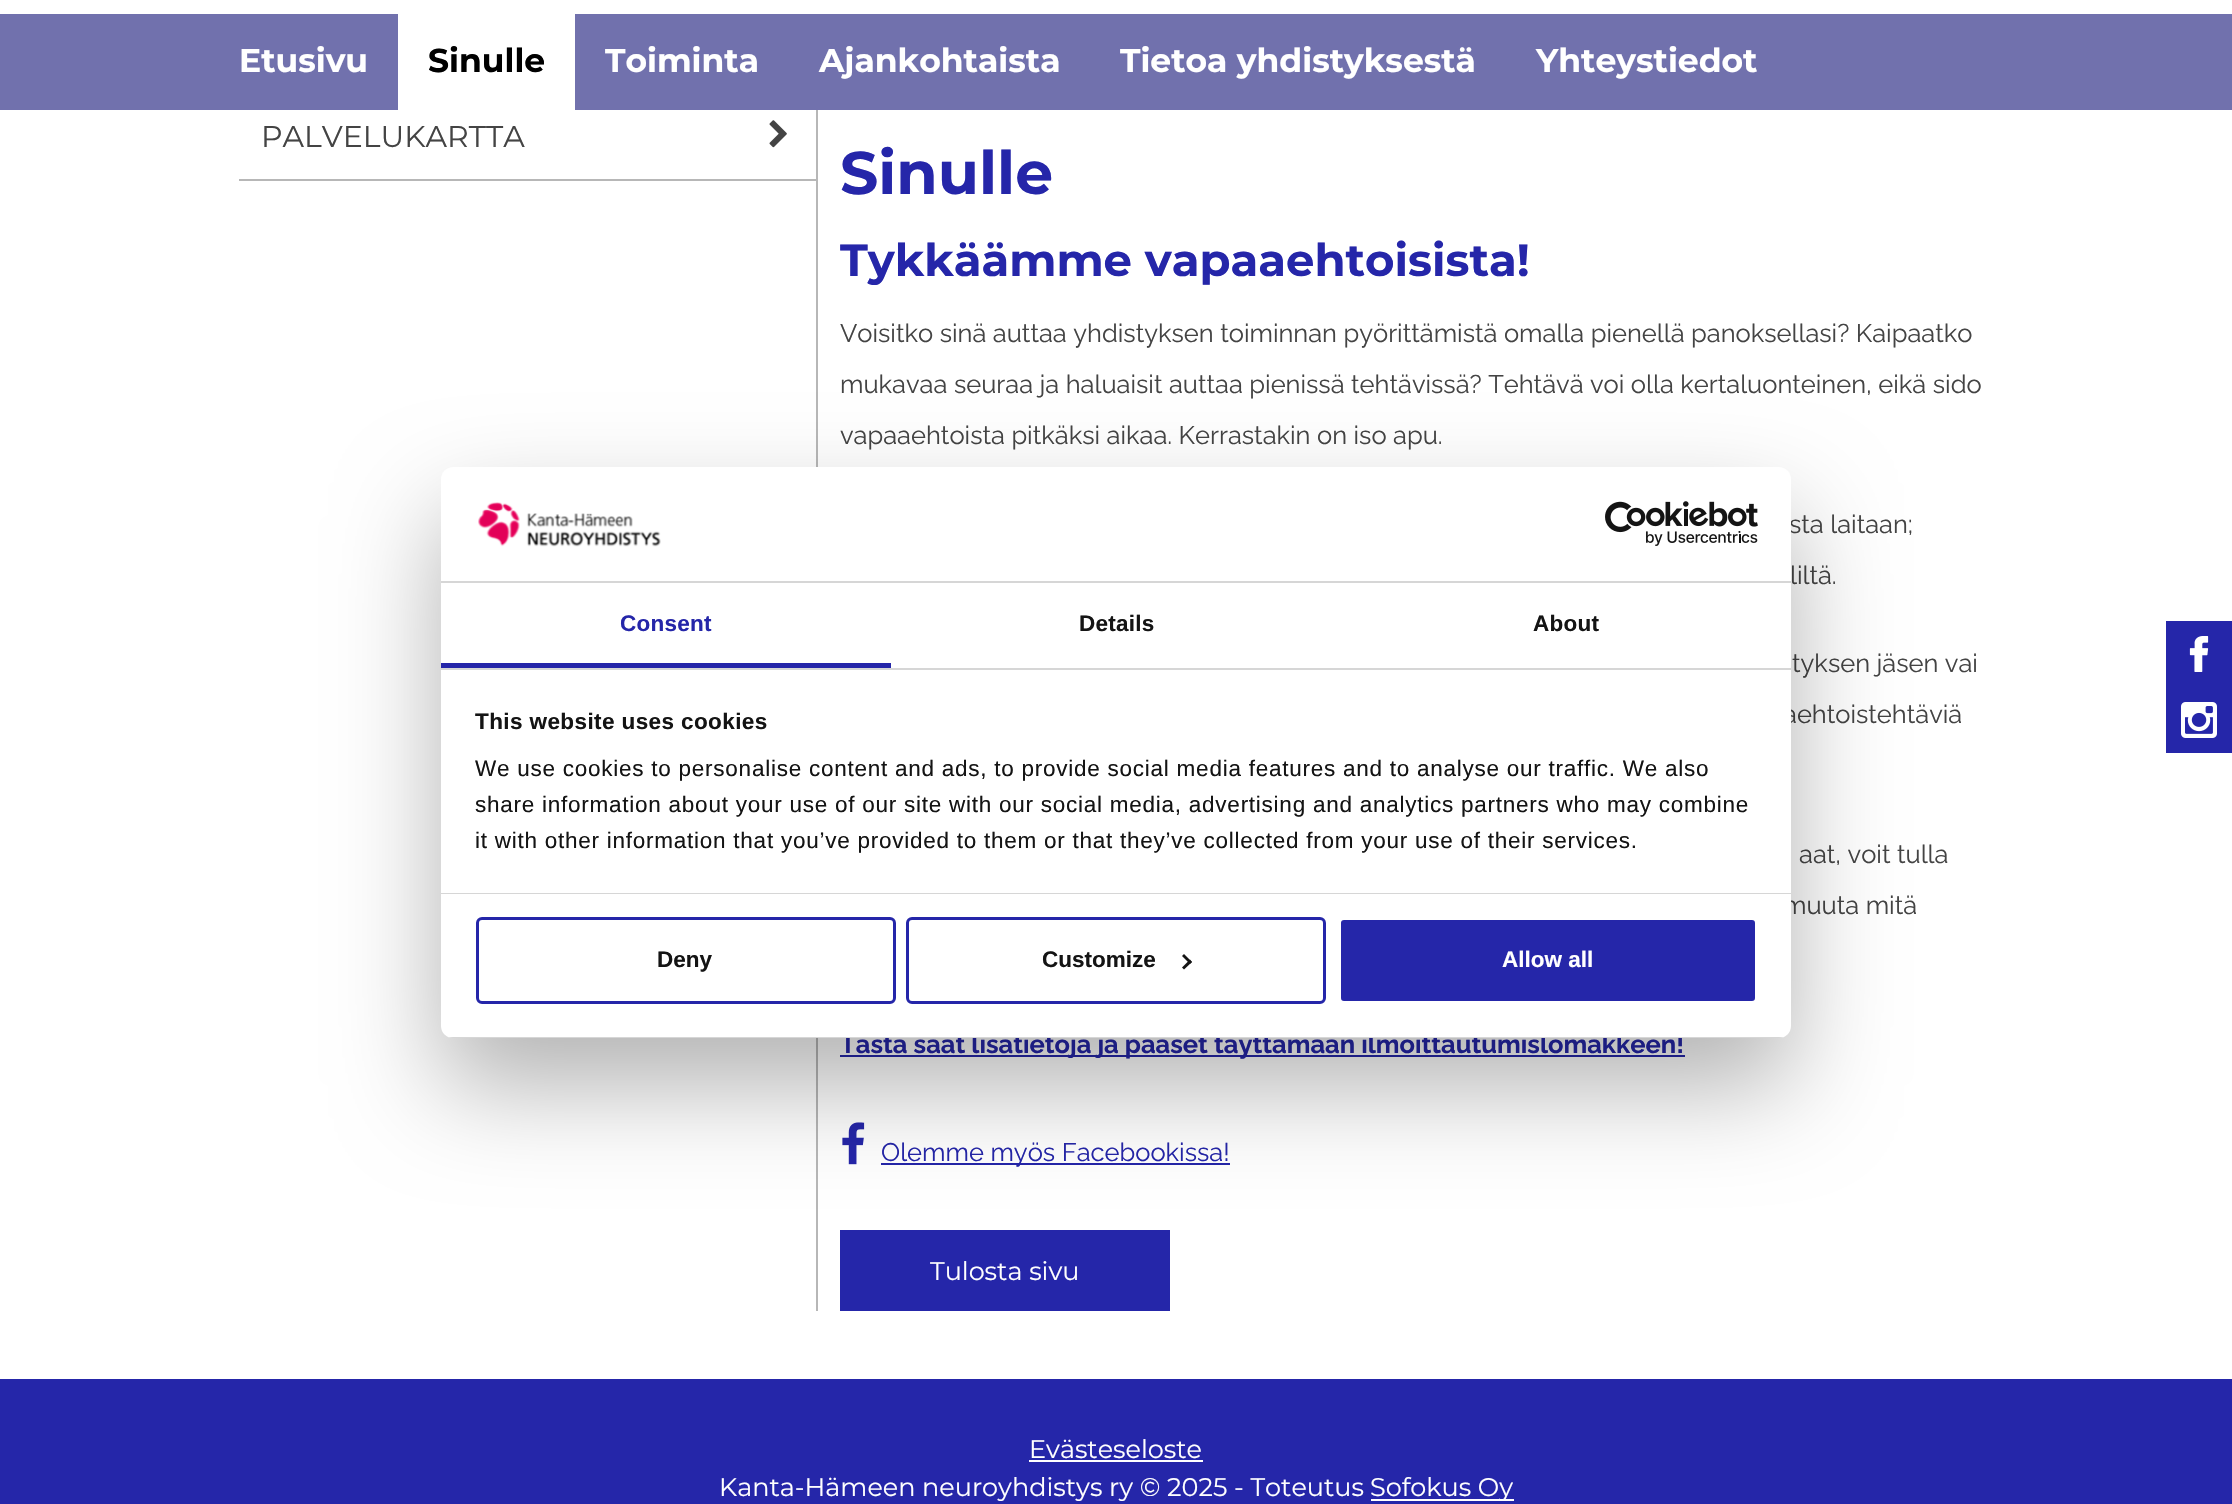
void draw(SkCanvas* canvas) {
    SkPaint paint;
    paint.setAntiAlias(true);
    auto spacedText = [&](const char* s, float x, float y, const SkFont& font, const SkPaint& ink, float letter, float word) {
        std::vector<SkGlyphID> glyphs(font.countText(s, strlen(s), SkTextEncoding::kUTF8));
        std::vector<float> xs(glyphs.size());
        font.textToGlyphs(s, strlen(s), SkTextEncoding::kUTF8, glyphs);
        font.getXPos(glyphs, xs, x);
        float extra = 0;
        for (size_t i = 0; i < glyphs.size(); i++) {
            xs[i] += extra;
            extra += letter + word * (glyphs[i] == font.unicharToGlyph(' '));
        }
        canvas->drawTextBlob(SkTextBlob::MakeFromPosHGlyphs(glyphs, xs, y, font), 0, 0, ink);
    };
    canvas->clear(0xFF2526A9);
    paint.setColor(0xFFFFFFFF);
    canvas->drawRect(SkRect::MakeXYWH(0, 0, 2232, 14), paint);
    paint.setColor(0xFF7171AD);
    canvas->drawRect(SkRect::MakeXYWH(0, 14, 2232, 96), paint);
    SkFont font1(fontMgr->matchFamilyStyle("Montserrat", SkFontStyle::Bold()), 33);
    font1.setSubpixel(true);
    paint.setColor(0xFFFFFFFF);
    canvas->drawString("Etusivu", 239, 72, font1, paint);
    canvas->drawRect(SkRect::MakeXYWH(398, 14, 177, 96), paint);
    paint.setColor(0xFF000000);
    canvas->drawString("Sinulle", 428, 72, font1, paint);
    paint.setColor(0xFFFFFFFF);
    canvas->drawString("Toiminta", 605, 72, font1, paint);
    canvas->drawString("Ajankohtaista", 819, 72, font1, paint);
    canvas->drawString("Tietoa yhdistyksestä", 1120, 72, font1, paint);
    canvas->drawString("Yhteystiedot", 1536, 72, font1, paint);
    canvas->drawRect(SkRect::MakeXYWH(0, 110, 2232, 1269), paint);
    paint.setColor(0xFFB7B7B7);
    canvas->drawRect(SkRect::MakeXYWH(239, 179, 577, 2), paint);
    SkFont font2(fontMgr->matchFamilyStyle("Montserrat", SkFontStyle::Normal()), 30);
    font2.setSubpixel(true);
    paint.setColor(0xFF444444);
    canvas->drawString("PALVELUKARTTA", 261, 147, font2, paint);
    canvas->drawImageRect(SkImages::DeferredFromEncodedData(SkData::MakeFromFileName("img1.png")), SkRect::MakeXYWH(769, 120, 18, 28), SkSamplingOptions());
    paint.setColor(0xFFB7B7B7);
    canvas->drawRect(SkRect::MakeXYWH(816, 110, 2, 1201), paint);
    SkFont font3(fontMgr->matchFamilyStyle("Montserrat", SkFontStyle::Bold()), 60);
    font3.setSubpixel(true);
    paint.setColor(0xFF2526A9);
    canvas->drawString("Sinulle", 840, 194, font3, paint);
    SkFont font4(fontMgr->matchFamilyStyle("Montserrat", SkFontStyle::Bold()), 45);
    font4.setSubpixel(true);
    canvas->drawString("Tykkäämme vapaaehtoisista!", 840, 276, font4, paint);
    SkFont font5(fontMgr->matchFamilyStyle("Raleway", SkFontStyle::Normal()), 25.5f);
    font5.setSubpixel(true);
    paint.setColor(0xFF444444);
    canvas->drawString("Voisitko sinä auttaa yhdistyksen toiminnan pyörittämistä omalla pienellä panoksellasi? Kaipaatko", 840, 342, font5, paint);
    canvas->drawString("mukavaa seuraa ja haluaisit auttaa pienissä tehtävissä? Tehtävä voi olla kertaluonteinen, eikä sido", 840, 393, font5, paint);
    canvas->drawString("vapaaehtoista pitkäksi aikaa. Kerrastakin on iso apu.", 840, 444, font5, paint);
    canvas->drawString("sta laitaan;", 1789, 533, font5, paint);
    canvas->drawString("liltä.", 1790, 584, font5, paint);
    canvas->drawString("tyksen jäsen vai", 1792, 672, font5, paint);
    canvas->drawString("aehtoistehtäviä", 1783, 723, font5, paint);
    canvas->drawString("aat, voit tulla", 1799, 863, font5, paint);
    canvas->drawString("muuta mitä", 1783, 914, font5, paint);
    paint.setColor(0xFF2526A9);
    canvas->drawRect(SkRect::MakeXYWH(840, 1055, 845, 2), paint);
    SkFont font6(fontMgr->matchFamilyStyle("Raleway", SkFontStyle::Bold()), 25.5f);
    font6.setSubpixel(true);
    canvas->drawString("Tästä saat lisätietoja ja pääset täyttämään ilmoittautumislomakkeen!", 840, 1053, font6, paint);
    canvas->drawImageRect(SkImages::DeferredFromEncodedData(SkData::MakeFromFileName("img2.png")), SkRect::MakeXYWH(842, 1122, 23, 43), SkSamplingOptions());
    canvas->drawRect(SkRect::MakeXYWH(881, 1163, 349, 2), paint);
    canvas->drawString("Olemme myös Facebookissa!", 881, 1161, font5, paint);
    canvas->drawRect(SkRect::MakeXYWH(840, 1230, 330, 81), paint);
    SkFont font7(fontMgr->matchFamilyStyle("Montserrat", SkFontStyle::Normal()), 25.5f);
    font7.setSubpixel(true);
    paint.setColor(0xFFFFFFFF);
    canvas->drawString("Tulosta sivu", 930, 1280, font7, paint);
    paint.setColor(0x4D000000);
    paint.setMaskFilter(SkMaskFilter::MakeBlur(kNormal_SkBlurStyle, 51));
    canvas->drawRoundRect(SkRect::MakeXYWH(441, 515, 1350, 571), 12, 12, paint);
    paint.setMaskFilter(nullptr);
    paint.setColor(0xFFFFFFFF);
    canvas->drawRoundRect(SkRect::MakeXYWH(441, 467, 1350, 571), 12, 12, paint);
    paint.setColor(0xFFD6D6D6);
    canvas->drawRect(SkRect::MakeXYWH(441, 581, 1350, 2), paint);
    canvas->drawImageRect(SkImages::DeferredFromEncodedData(SkData::MakeFromFileName("img3.png")), SkRect::MakeXYWH(478, 502, 183, 45), SkSamplingOptions());
    canvas->drawImageRect(SkImages::DeferredFromEncodedData(SkData::MakeFromFileName("img4.png")), SkRect::MakeXYWH(1605, 501, 153, 45), SkSamplingOptions());
    canvas->drawRect(SkRect::MakeXYWH(441, 668, 1350, 2), paint);
    paint.setColor(0xFF2526A9);
    canvas->drawRect(SkRect::MakeXYWH(441, 663, 450, 5), paint);
    SkFont font8(fontMgr->matchFamilyStyle("Liberation Sans", SkFontStyle::Bold()), 22.5f);
    font8.setSubpixel(true);
    spacedText("Consent", 620, 631, font8, paint, 0.25f, 0);
    paint.setColor(0xFF141414);
    spacedText("Details", 1079, 631, font8, paint, 0.25f, 0);
    spacedText("About", 1533, 631, font8, paint, 0.25f, 0);
    paint.setColor(0xFFD6D6D6);
    canvas->drawRect(SkRect::MakeXYWH(441, 893, 1350, 1), paint);
    paint.setColor(0xFF141414);
    spacedText("This website uses cookies", 475, 729, font8, paint, 0.4f, 0);
    SkFont font9(fontMgr->matchFamilyStyle("Liberation Sans", SkFontStyle::Normal()), 22.5f);
    font9.setSubpixel(true);
    spacedText("We use cookies to personalise content and ads, to provide social media features and to analyse our traffic. We also", 475, 776, font9, paint, 0.75f, 0);
    spacedText("share information about your use of our site with our social media, advertising and analytics partners who may combine", 475, 812, font9, paint, 0.75f, 0);
    spacedText("it with other information that you’ve provided to them or that they’ve collected from your use of their services.", 475, 848, font9, paint, 0.75f, 0);
    canvas->save();
    canvas->clipPath(SkPathBuilder().moveTo(453, 467).lineTo(1779, 467).cubicTo(1785.5f, 467, 1791, 472.5f, 1791, 479).lineTo(1791, 1026).cubicTo(1791, 1032.5f, 1785.5f, 1038, 1779, 1038).lineTo(453, 1038).cubicTo(446.5f, 1038, 441, 1032.5f, 441, 1026).lineTo(441, 479).cubicTo(441, 472.5f, 446.5f, 467, 453, 467).close().detach(), true);
    paint.setColor(0xFFD6D6D6);
    canvas->drawRect(SkRect::MakeXYWH(441, 1037, 1350, 1), paint);
    canvas->restore();
    paint.setStyle(SkPaint::kStroke_Style);
    paint.setStrokeWidth(3);
    paint.setColor(0xFF2526A9);
    canvas->drawRoundRect(SkRect::MakeXYWH(477.5f, 918.5f, 417, 84), 4.5f, 4.5f, paint);
    paint.setStyle(SkPaint::kFill_Style);
    paint.setColor(0xFF141414);
    canvas->drawString("Deny", 657, 967, font8, paint);
    paint.setStyle(SkPaint::kStroke_Style);
    paint.setColor(0xFF2526A9);
    canvas->drawRoundRect(SkRect::MakeXYWH(907.5f, 918.5f, 417, 84), 4.5f, 4.5f, paint);
    paint.setStyle(SkPaint::kFill_Style);
    paint.setColor(0xFF141414);
    canvas->drawString("Customize", 1042, 967, font8, paint);
    canvas->drawPath(SkPathBuilder().moveTo(1184, 954).lineTo(1192, 962).lineTo(1190, 964).lineTo(1182, 956).close().detach(), paint);
    canvas->drawPath(SkPathBuilder().moveTo(1190, 959.5f).lineTo(1192, 962).lineTo(1184, 969.5f).lineTo(1182, 967.5f).close().detach(), paint);
    paint.setColor(0xFF2526A9);
    canvas->drawRoundRect(SkRect::MakeXYWH(1339.5f, 918.5f, 417, 84), 4.5f, 4.5f, paint);
    paint.setStyle(SkPaint::kStroke_Style);
    paint.setColor(0xFFFFFFFF);
    canvas->drawRoundRect(SkRect::MakeXYWH(1339.5f, 918.5f, 417, 84), 4.5f, 4.5f, paint);
    paint.setStyle(SkPaint::kFill_Style);
    canvas->drawString("Allow all", 1502, 967, font8, paint);
    paint.setColor(0xFF2526A9);
    canvas->drawRect(SkRect::MakeXYWH(2166, 621, 66, 132), paint);
    canvas->drawImageRect(SkImages::DeferredFromEncodedData(SkData::MakeFromFileName("img5.png")), SkRect::MakeXYWH(2189, 636, 20, 36), SkSamplingOptions());
    canvas->drawImageRect(SkImages::DeferredFromEncodedData(SkData::MakeFromFileName("img6.png")), SkRect::MakeXYWH(2181, 702, 36, 36), SkSamplingOptions());
    paint.setColor(0xFFFFFFFF);
    canvas->drawString("Evästeseloste", 1029, 1458, font7, paint);
    canvas->drawRect(SkRect::MakeXYWH(1029, 1460, 174, 2), paint);
    canvas->drawString("Kanta-Hämeen neuroyhdistys ry © 2025 - Toteutus", 719, 1496, font7, paint);
    canvas->drawRect(SkRect::MakeXYWH(1371, 1499, 143, 2), paint);
    canvas->drawString("Sofokus Oy", 1370, 1496, font7, paint);
}
